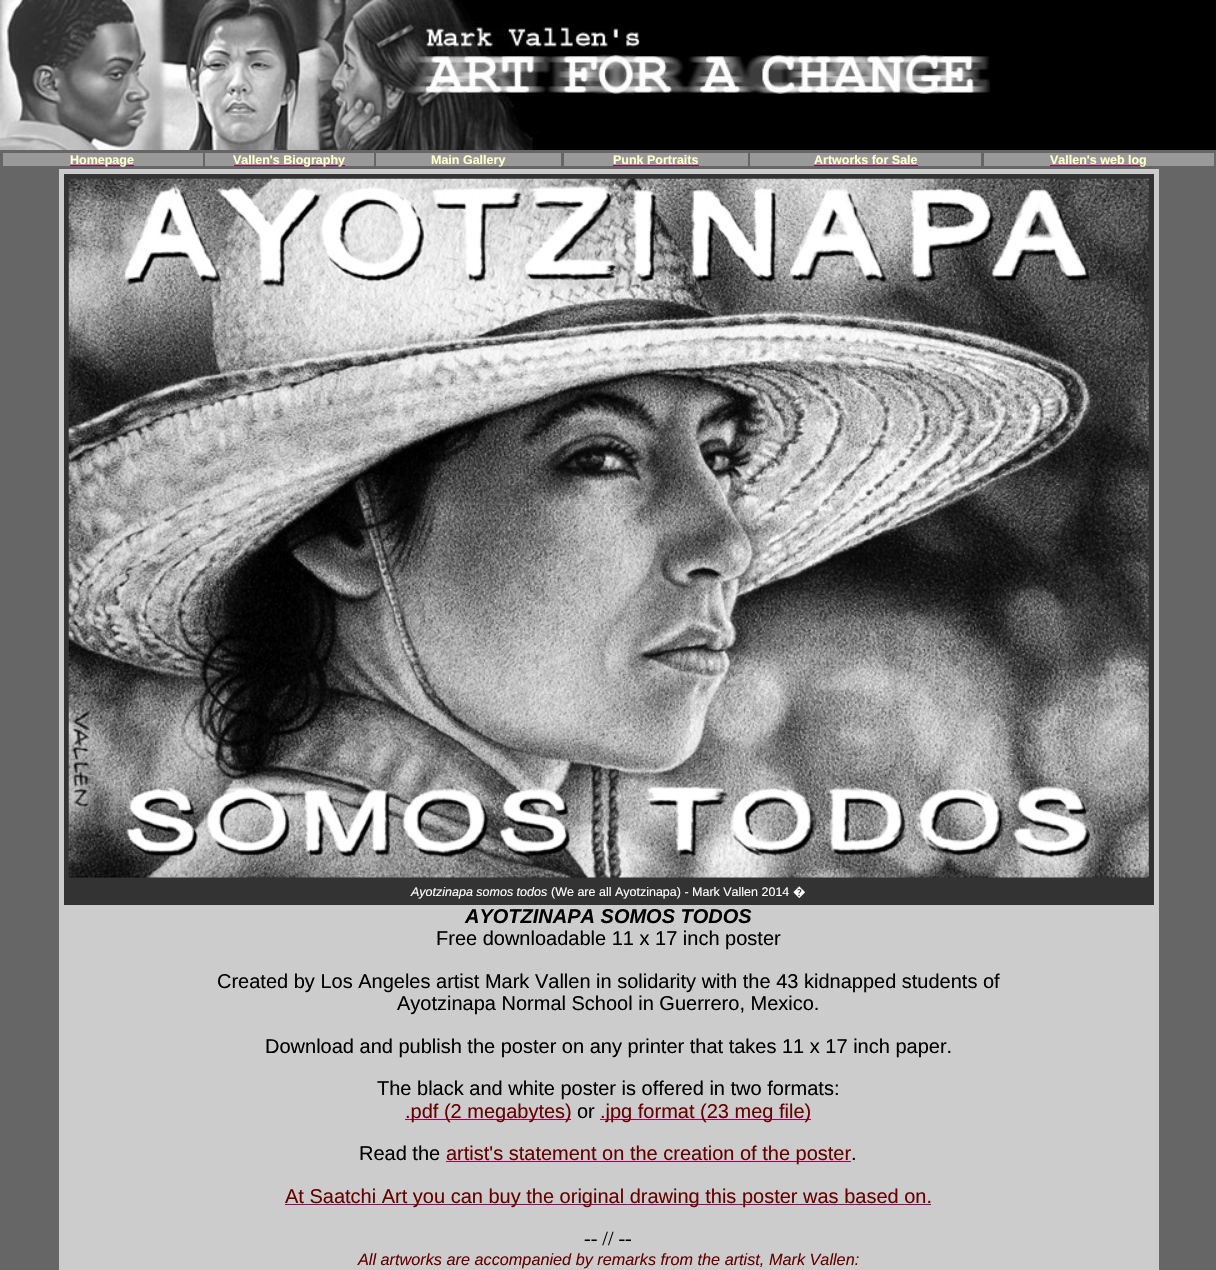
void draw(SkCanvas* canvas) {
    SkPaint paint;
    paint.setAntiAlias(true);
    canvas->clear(0xFF666666);
    paint.setColor(0xFF000000);
    canvas->drawRect(SkRect::MakeXYWH(990, 0, 226, 150), paint);
    canvas->drawImageRect(SkImages::DeferredFromEncodedData(SkData::MakeFromFileName("img1.png")), SkRect::MakeXYWH(0, 0, 990, 150), SkSamplingOptions());
    paint.setColor(0xFF999999);
    canvas->drawRect(SkRect::MakeXYWH(3, 153, 200, 13), paint);
    paint.setColor(0xFF990066);
    canvas->drawRect(SkRect::MakeXYWH(70, 165, 64, 1), paint);
    SkFont font1(fontMgr->matchFamilyStyle("Liberation Sans", SkFontStyle::Bold()), 12.5f);
    font1.setSubpixel(true);
    paint.setColor(0xFFFFFFCC);
    canvas->drawString("Homepage", 70, 164, font1, paint);
    paint.setColor(0xFF999999);
    canvas->drawRect(SkRect::MakeXYWH(205, 153, 169, 13), paint);
    paint.setColor(0xFF990066);
    canvas->drawRect(SkRect::MakeXYWH(234, 165, 111, 1), paint);
    paint.setColor(0xFFFFFFCC);
    canvas->drawString("Vallen's Biography", 233, 164, font1, paint);
    paint.setColor(0xFF999999);
    canvas->drawRect(SkRect::MakeXYWH(376, 153, 185, 13), paint);
    paint.setColor(0xFFFFFFCC);
    canvas->drawString("Main Gallery", 431, 164, font1, paint);
    paint.setColor(0xFF999999);
    canvas->drawRect(SkRect::MakeXYWH(564, 153, 184, 13), paint);
    paint.setColor(0xFFFFFFCC);
    canvas->drawString("Punk Portraits", 613, 164, font1, paint);
    paint.setColor(0xFF990066);
    canvas->drawRect(SkRect::MakeXYWH(613, 165, 86, 1), paint);
    paint.setColor(0xFF999999);
    canvas->drawRect(SkRect::MakeXYWH(750, 153, 231, 13), paint);
    paint.setColor(0xFFFFFFCC);
    canvas->drawString("Artworks for Sale", 814, 164, font1, paint);
    paint.setColor(0xFF990066);
    canvas->drawRect(SkRect::MakeXYWH(814, 165, 104, 1), paint);
    paint.setColor(0xFF999999);
    canvas->drawRect(SkRect::MakeXYWH(984, 153, 230, 13), paint);
    paint.setColor(0xFF990066);
    canvas->drawRect(SkRect::MakeXYWH(1050, 165, 96, 1), paint);
    paint.setColor(0xFFFFFFCC);
    canvas->drawString("Vallen's web log", 1050, 164, font1, paint);
    paint.setColor(0xFFCCCCCC);
    canvas->drawRect(SkRect::MakeXYWH(59, 169, 1100, 1101), paint);
    paint.setColor(0xFF333333);
    canvas->drawRect(SkRect::MakeXYWH(64, 174, 1090, 731), paint);
    canvas->drawImageRect(SkImages::DeferredFromEncodedData(SkData::MakeFromFileName("img2.png")), SkRect::MakeXYWH(68, 178, 1081, 700), SkSamplingOptions());
    SkFont font2(fontMgr->matchFamilyStyle("Liberation Sans", SkFontStyle::Italic()), 12.5f);
    font2.setSubpixel(true);
    paint.setColor(0xFFFFFFFF);
    canvas->drawString("Ayotzinapa somos todos", 411, 896, font2, paint);
    SkFont font3(fontMgr->matchFamilyStyle("Liberation Sans", SkFontStyle::Normal()), 12.5f);
    font3.setSubpixel(true);
    canvas->drawString("(We are all Ayotzinapa) - Mark Vallen 2014", 551, 896, font3, paint);
    SkFont font4(fontMgr->matchFamilyStyle("Noto Sans", SkFontStyle::Normal()), 12.5f);
    font4.setSubpixel(true);
    canvas->drawString("�", 793, 896, font4, paint);
    SkFont font5(fontMgr->matchFamilyStyle("Liberation Sans", SkFontStyle::BoldItalic()), 20);
    font5.setSubpixel(true);
    paint.setColor(0xFF000000);
    canvas->drawString("AYOTZINAPA SOMOS TODOS", 465, 923, font5, paint);
    SkFont font6(fontMgr->matchFamilyStyle("Liberation Sans", SkFontStyle::Normal()), 20);
    font6.setSubpixel(true);
    canvas->drawString("Free downloadable 11 x 17 inch poster", 436, 945, font6, paint);
    canvas->drawString("Created by Los Angeles artist Mark Vallen in solidarity with the 43 kidnapped students of", 217, 988, font6, paint);
    canvas->drawString("Ayotzinapa Normal School in Guerrero, Mexico.", 397, 1010, font6, paint);
    canvas->drawString("Download and publish the poster on any printer that takes 11 x 17 inch paper.", 265, 1053, font6, paint);
    canvas->drawString("The black and white poster is offered in two formats:", 377, 1095, font6, paint);
    paint.setColor(0xFF990066);
    canvas->drawRect(SkRect::MakeXYWH(405, 1119, 166, 1), paint);
    paint.setColor(0xFF660000);
    canvas->drawString(".pdf (2 megabytes)", 405, 1118, font6, paint);
    paint.setColor(0xFF000000);
    canvas->drawString("or", 577, 1118, font6, paint);
    paint.setColor(0xFF990066);
    canvas->drawRect(SkRect::MakeXYWH(600, 1119, 211, 1), paint);
    paint.setColor(0xFF660000);
    canvas->drawString(".jpg format (23 meg file)", 600, 1118, font6, paint);
    paint.setColor(0xFF000000);
    canvas->drawString("Read the", 359, 1160, font6, paint);
    paint.setColor(0xFF990066);
    canvas->drawRect(SkRect::MakeXYWH(446, 1161, 405, 1), paint);
    paint.setColor(0xFF660000);
    canvas->drawString("artist's statement on the creation of the poster", 446, 1160, font6, paint);
    paint.setColor(0xFF000000);
    canvas->drawString(".", 851, 1160, font6, paint);
    paint.setColor(0xFF990066);
    canvas->drawRect(SkRect::MakeXYWH(285, 1204, 646, 1), paint);
    paint.setColor(0xFF660000);
    canvas->drawString("At Saatchi Art you can buy the original drawing this poster was based on.", 285, 1203, font6, paint);
    SkFont font7(fontMgr->matchFamilyStyle("Liberation Serif", SkFontStyle::Normal()), 20);
    font7.setSubpixel(true);
    paint.setColor(0xFF000000);
    canvas->drawString("-- // --", 584, 1245, font7, paint);
    SkFont font8(fontMgr->matchFamilyStyle("Liberation Sans", SkFontStyle::Italic()), 16.25f);
    font8.setSubpixel(true);
    paint.setColor(0xFF660000);
    canvas->drawString("All artworks are accompanied by remarks from the artist, Mark Vallen:", 358, 1265, font8, paint);
}
